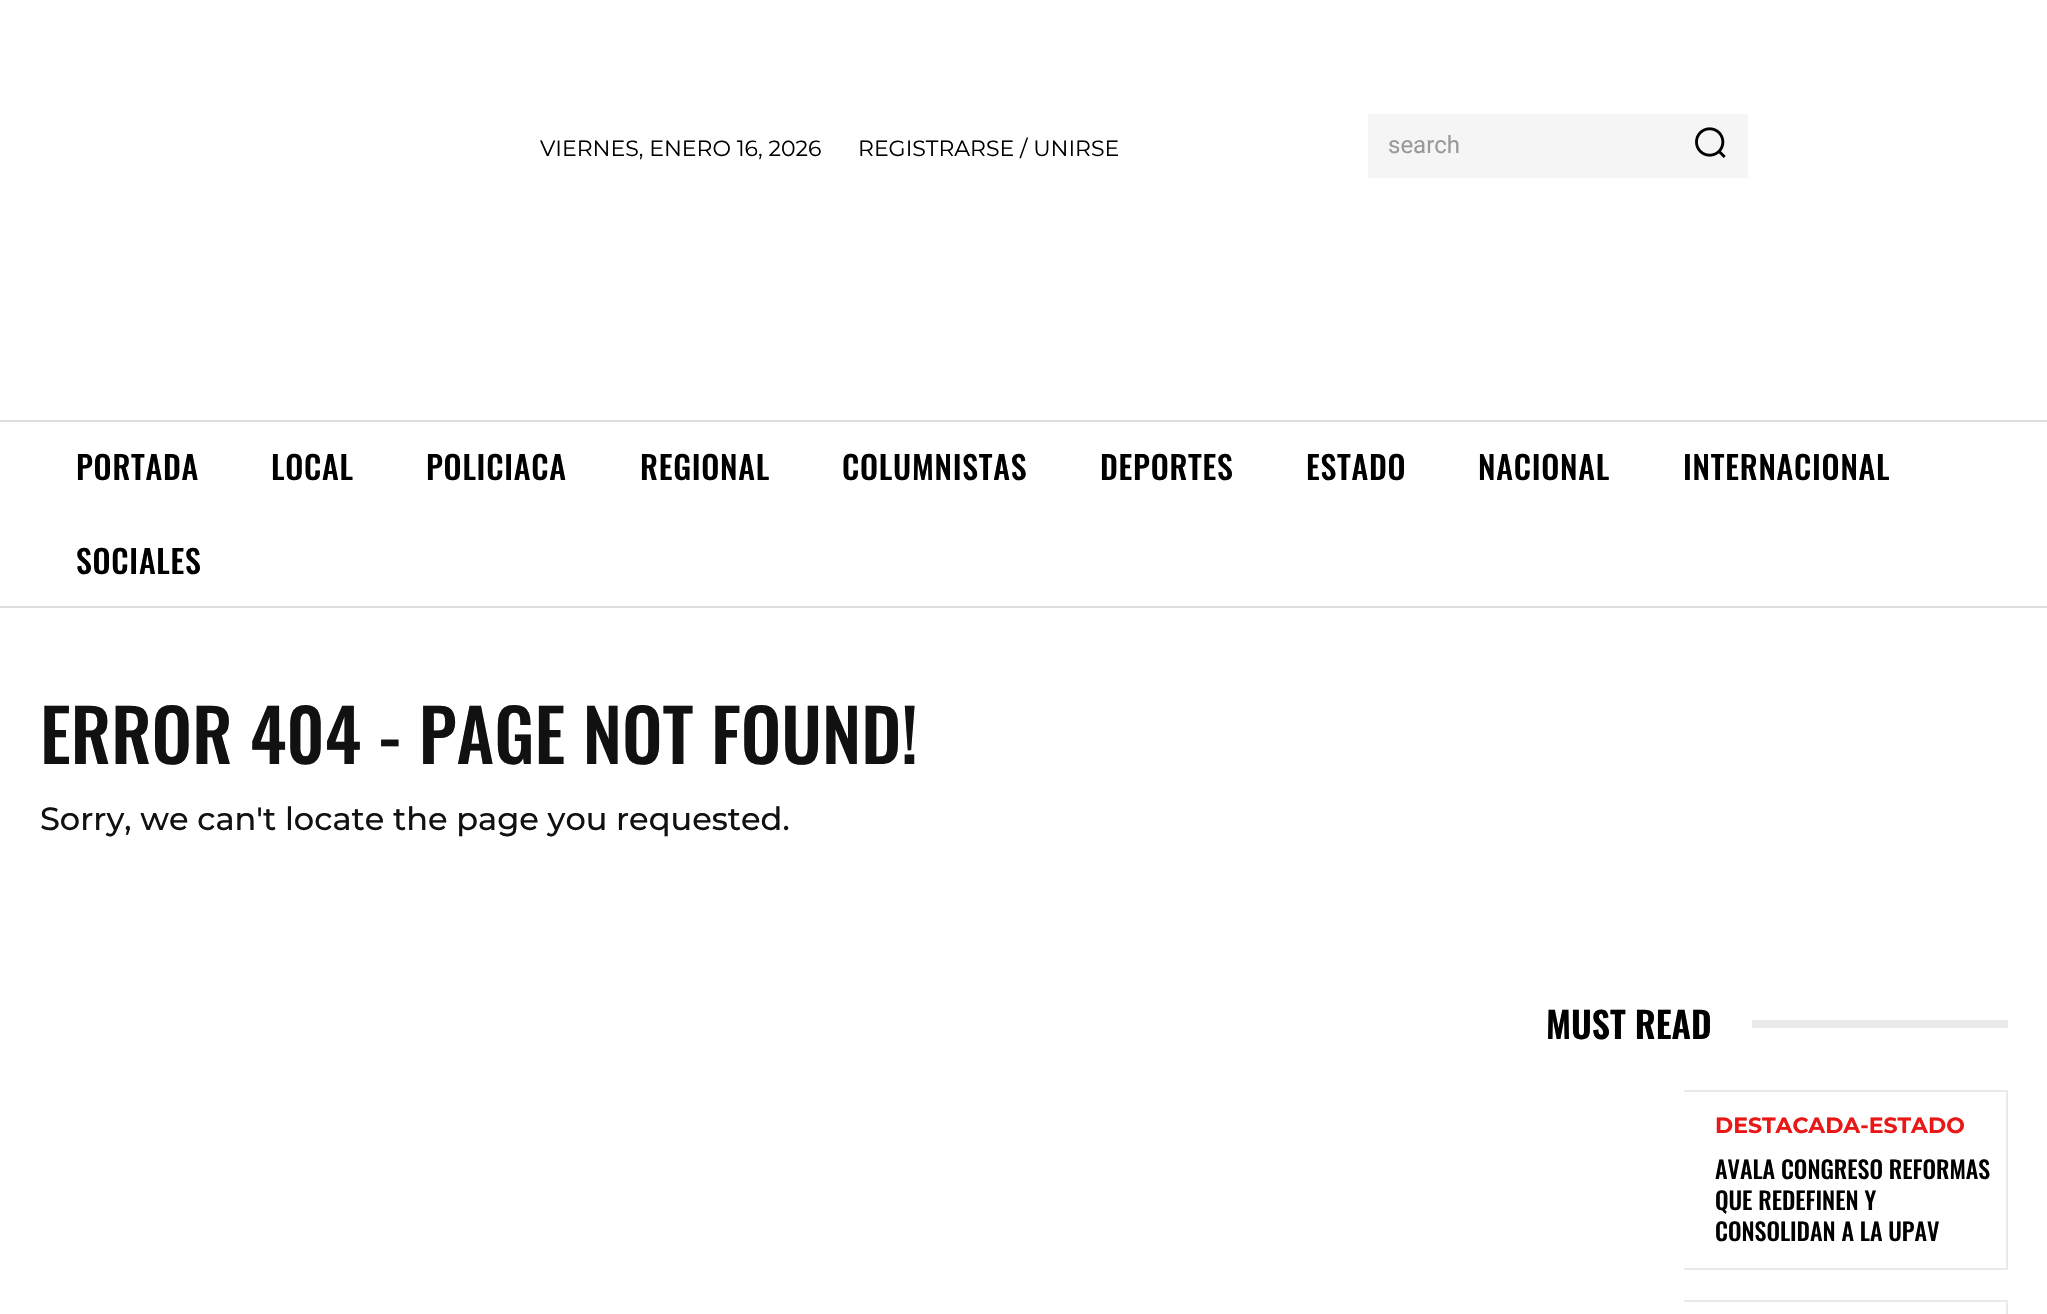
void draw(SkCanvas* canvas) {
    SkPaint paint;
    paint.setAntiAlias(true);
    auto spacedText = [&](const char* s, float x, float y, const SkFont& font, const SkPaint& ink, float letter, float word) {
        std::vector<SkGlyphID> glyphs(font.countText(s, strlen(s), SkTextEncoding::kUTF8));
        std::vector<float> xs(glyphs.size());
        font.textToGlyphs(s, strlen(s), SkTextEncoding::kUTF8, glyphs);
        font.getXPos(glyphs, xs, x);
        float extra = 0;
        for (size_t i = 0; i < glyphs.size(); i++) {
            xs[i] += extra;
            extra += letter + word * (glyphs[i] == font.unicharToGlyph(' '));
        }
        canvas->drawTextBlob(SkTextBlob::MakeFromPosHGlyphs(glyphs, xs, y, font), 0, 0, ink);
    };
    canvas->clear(0xFFFFFFFF);
    SkFont font1(fontMgr->matchFamilyStyle("Montserrat", SkFontStyle::Normal()), 22);
    font1.setSubpixel(true);
    paint.setColor(0xFF000000);
    canvas->drawString("VIERNES, ENERO 16, 2026", 540, 156, font1, paint);
    canvas->drawString("REGISTRARSE / UNIRSE", 858, 156, font1, paint);
    paint.setColor(0xFFF5F5F5);
    canvas->drawRect(SkRect::MakeXYWH(1368, 114, 380, 64), paint);
    SkFont font2(fontMgr->matchFamilyStyle("Roboto", SkFontStyle::Normal()), 24);
    font2.setSubpixel(true);
    paint.setColor(0xFF999999);
    canvas->drawString("search", 1388, 153, font2, paint);
    canvas->drawImageRect(SkImages::DeferredFromEncodedData(SkData::MakeFromFileName("img1.png")), SkRect::MakeXYWH(1695, 127, 31, 31), SkSamplingOptions());
    paint.setColor(0xFFDDDDDD);
    canvas->drawRect(SkRect::MakeXYWH(0, 420, 2047, 2), paint);
    canvas->drawRect(SkRect::MakeXYWH(0, 606, 2047, 2), paint);
    SkFont font3(fontMgr->matchFamilyStyle("Oswald", SkFontStyle(500, SkFontStyle::kNormal_Width, SkFontStyle::kUpright_Slant)), 32);
    font3.setSubpixel(true);
    paint.setColor(0xFF000000);
    spacedText("PORTADA", 76, 480, font3, paint, 0.75f, 0);
    spacedText("LOCAL", 271, 480, font3, paint, 0.75f, 0);
    spacedText("POLICIACA", 426, 480, font3, paint, 0.75f, 0);
    spacedText("REGIONAL", 640, 480, font3, paint, 0.75f, 0);
    spacedText("COLUMNISTAS", 842, 480, font3, paint, 0.75f, 0);
    spacedText("DEPORTES", 1100, 480, font3, paint, 0.75f, 0);
    spacedText("ESTADO", 1306, 480, font3, paint, 0.75f, 0);
    spacedText("NACIONAL", 1478, 480, font3, paint, 0.75f, 0);
    spacedText("INTERNACIONAL", 1683, 480, font3, paint, 0.75f, 0);
    spacedText("SOCIALES", 76, 574, font3, paint, 0.75f, 0);
    SkFont font4(fontMgr->matchFamilyStyle("Oswald", SkFontStyle(500, SkFontStyle::kNormal_Width, SkFontStyle::kUpright_Slant)), 72);
    font4.setSubpixel(true);
    paint.setColor(0xFF111111);
    canvas->drawString("ERROR 404 - PAGE NOT FOUND!", 40, 764, font4, paint);
    SkFont font5(fontMgr->matchFamilyStyle("Montserrat", SkFontStyle(500, SkFontStyle::kNormal_Width, SkFontStyle::kUpright_Slant)), 32);
    font5.setSubpixel(true);
    canvas->drawString("Sorry, we can't locate the page you requested.", 40, 830, font5, paint);
    SkFont font6(fontMgr->matchFamilyStyle("Oswald", SkFontStyle(600, SkFontStyle::kNormal_Width, SkFontStyle::kUpright_Slant)), 36);
    font6.setSubpixel(true);
    paint.setColor(0xFF000000);
    canvas->drawString("MUST READ", 1546, 1039, font6, paint);
    paint.setColor(0xFFEAEAEA);
    canvas->drawRect(SkRect::MakeXYWH(1752, 1020, 256, 8), paint);
    canvas->drawRect(SkRect::MakeXYWH(1684, 1090, 324, 2), paint);
    canvas->drawRect(SkRect::MakeXYWH(2006, 1090, 2, 180), paint);
    canvas->drawRect(SkRect::MakeXYWH(1684, 1268, 324, 2), paint);
    SkFont font7(fontMgr->matchFamilyStyle("Montserrat", SkFontStyle::Bold()), 22);
    font7.setSubpixel(true);
    paint.setColor(0xFFEA1717);
    canvas->drawString("DESTACADA-ESTADO", 1715, 1133, font7, paint);
    SkFont font8(fontMgr->matchFamilyStyle("Oswald", SkFontStyle(500, SkFontStyle::kNormal_Width, SkFontStyle::kUpright_Slant)), 24);
    font8.setSubpixel(true);
    paint.setColor(0xFF000000);
    canvas->drawString("AVALA CONGRESO REFORMAS", 1715, 1179, font8, paint);
    canvas->drawString("QUE REDEFINEN Y", 1715, 1210, font8, paint);
    canvas->drawString("CONSOLIDAN A LA UPAV", 1715, 1241, font8, paint);
    paint.setColor(0xFFEAEAEA);
    canvas->drawRect(SkRect::MakeXYWH(1684, 1300, 324, 2), paint);
    canvas->drawRect(SkRect::MakeXYWH(2006, 1300, 2, 14), paint);
}
